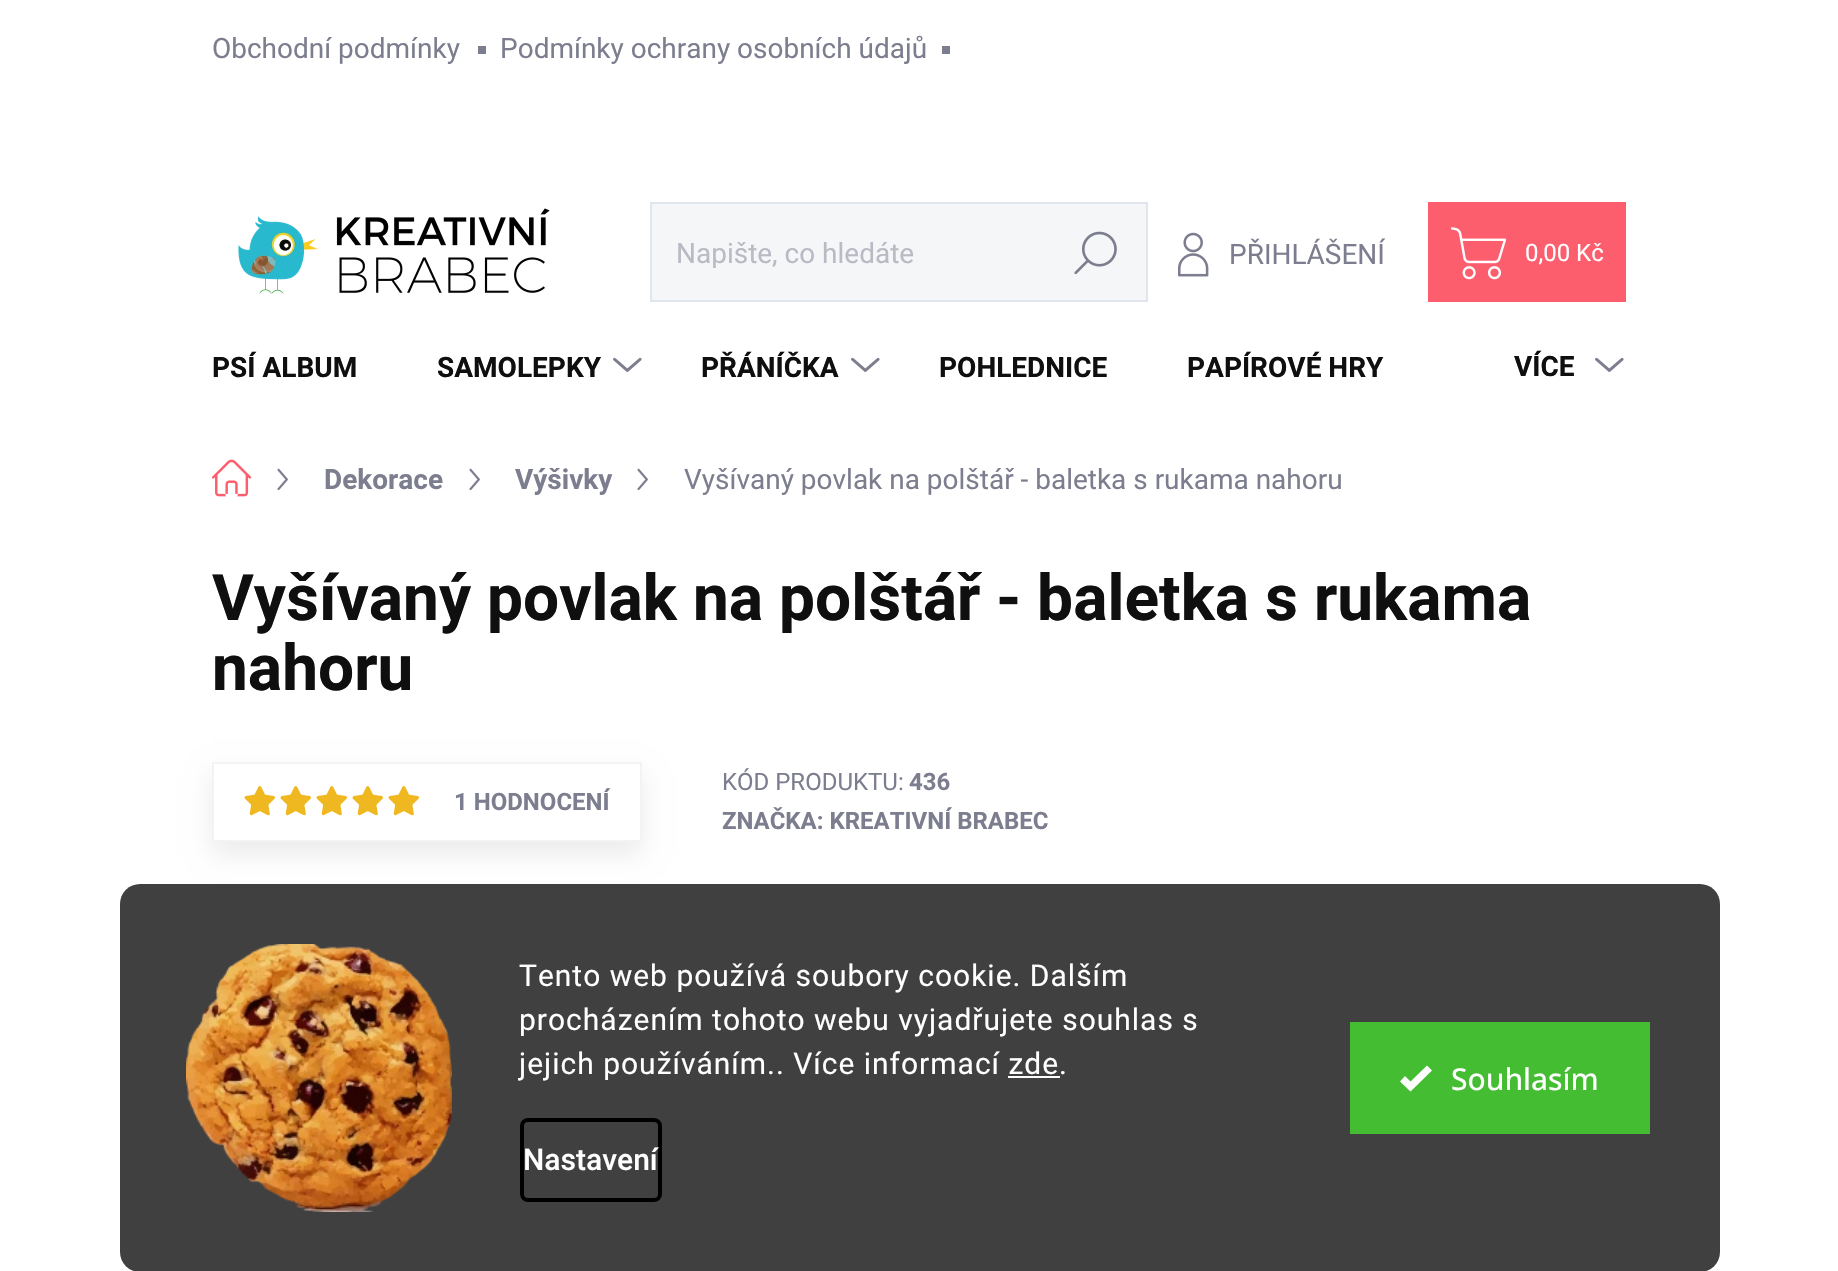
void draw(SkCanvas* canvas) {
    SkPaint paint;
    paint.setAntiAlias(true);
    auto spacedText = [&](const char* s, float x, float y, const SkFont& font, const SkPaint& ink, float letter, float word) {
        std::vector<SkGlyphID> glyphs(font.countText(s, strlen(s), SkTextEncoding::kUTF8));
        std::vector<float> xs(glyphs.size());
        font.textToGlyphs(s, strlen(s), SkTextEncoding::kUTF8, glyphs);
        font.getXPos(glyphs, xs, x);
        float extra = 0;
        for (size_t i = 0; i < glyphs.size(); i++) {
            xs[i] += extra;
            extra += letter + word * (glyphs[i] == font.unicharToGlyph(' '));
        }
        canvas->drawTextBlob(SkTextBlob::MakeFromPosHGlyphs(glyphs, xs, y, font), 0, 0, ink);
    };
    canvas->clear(0xFFFFFFFF);
    SkFont font1(fontMgr->matchFamilyStyle("Roboto", SkFontStyle::Normal()), 28);
    font1.setSubpixel(true);
    paint.setColor(0xFF7C7E8F);
    canvas->drawString("Obchodní podmínky", 212, 58, font1, paint);
    canvas->drawRect(SkRect::MakeXYWH(478, 46, 8, 8), paint);
    canvas->drawString("Podmínky ochrany osobních údajů", 500, 58, font1, paint);
    canvas->drawRect(SkRect::MakeXYWH(942, 46, 8, 8), paint);
    canvas->drawImageRect(SkImages::DeferredFromEncodedData(SkData::MakeFromFileName("img1.png")), SkRect::MakeXYWH(238, 208, 312, 86), SkSamplingOptions());
    paint.setColor(0xFFF5F6F8);
    canvas->drawRect(SkRect::MakeXYWH(651, 203, 496, 98), paint);
    paint.setStyle(SkPaint::kStroke_Style);
    paint.setStrokeWidth(2);
    paint.setColor(0xFFE0E5EE);
    canvas->drawRect(SkRect::MakeXYWH(651, 203, 496, 98), paint);
    canvas->save();
    canvas->clipRect(SkRect::MakeXYWH(676, 236, 362, 32));
    paint.setStyle(SkPaint::kFill_Style);
    paint.setColor(0xFFB9BAC4);
    canvas->drawString("Napište, co hledáte", 676, 263, font1, paint);
    canvas->restore();
    canvas->drawImageRect(SkImages::DeferredFromEncodedData(SkData::MakeFromFileName("img2.png")), SkRect::MakeXYWH(1074, 231, 43, 44), SkSamplingOptions());
    canvas->drawImageRect(SkImages::DeferredFromEncodedData(SkData::MakeFromFileName("img3.png")), SkRect::MakeXYWH(1178, 232, 31, 45), SkSamplingOptions());
    paint.setColor(0xFF7C7E8F);
    canvas->drawString("PŘIHLÁŠENÍ", 1229, 264, font1, paint);
    paint.setColor(0xFFFD5E6D);
    canvas->drawRect(SkRect::MakeXYWH(1428, 202, 198, 100), paint);
    canvas->drawImageRect(SkImages::DeferredFromEncodedData(SkData::MakeFromFileName("img4.png")), SkRect::MakeXYWH(1451, 227, 56, 53), SkSamplingOptions());
    SkFont font2(fontMgr->matchFamilyStyle("Roboto", SkFontStyle::Normal()), 24);
    font2.setSubpixel(true);
    paint.setColor(0xFFFFFFFF);
    canvas->drawString("0,00 Kč", 1525, 261, font2, paint);
    SkFont font3(fontMgr->matchFamilyStyle("Roboto", SkFontStyle::Bold()), 28);
    font3.setSubpixel(true);
    paint.setColor(0xFF0F0F0F);
    canvas->drawString("PSÍ ALBUM", 212, 377, font3, paint);
    canvas->drawString("SAMOLEPKY", 437, 377, font3, paint);
    canvas->drawImageRect(SkImages::DeferredFromEncodedData(SkData::MakeFromFileName("img5.png")), SkRect::MakeXYWH(613, 357, 29, 15), SkSamplingOptions());
    canvas->drawString("PŘÁNÍČKA", 701, 377, font3, paint);
    canvas->drawImageRect(SkImages::DeferredFromEncodedData(SkData::MakeFromFileName("img5.png")), SkRect::MakeXYWH(851, 357, 29, 15), SkSamplingOptions());
    canvas->drawString("POHLEDNICE", 939, 377, font3, paint);
    canvas->drawString("PAPÍROVÉ HRY", 1187, 377, font3, paint);
    canvas->drawString("VÍCE", 1514, 376, font3, paint);
    canvas->drawImageRect(SkImages::DeferredFromEncodedData(SkData::MakeFromFileName("img5.png")), SkRect::MakeXYWH(1595, 357, 29, 15), SkSamplingOptions());
    canvas->drawImageRect(SkImages::DeferredFromEncodedData(SkData::MakeFromFileName("img6.png")), SkRect::MakeXYWH(212, 459, 40, 38), SkSamplingOptions());
    canvas->drawImageRect(SkImages::DeferredFromEncodedData(SkData::MakeFromFileName("img7.png")), SkRect::MakeXYWH(277, 468, 11, 23), SkSamplingOptions());
    paint.setColor(0xFF7C7E8F);
    canvas->drawString("Dekorace", 324, 489, font3, paint);
    canvas->drawImageRect(SkImages::DeferredFromEncodedData(SkData::MakeFromFileName("img7.png")), SkRect::MakeXYWH(469, 468, 11, 23), SkSamplingOptions());
    canvas->drawString("Výšivky", 515, 489, font3, paint);
    canvas->drawImageRect(SkImages::DeferredFromEncodedData(SkData::MakeFromFileName("img7.png")), SkRect::MakeXYWH(637, 468, 11, 23), SkSamplingOptions());
    canvas->drawString("Vyšívaný povlak na polštář - baletka s rukama nahoru", 684, 489, font1, paint);
    SkFont font4(fontMgr->matchFamilyStyle("Roboto", SkFontStyle::Bold()), 64);
    font4.setSubpixel(true);
    paint.setColor(0xFF0F0F0F);
    canvas->drawString("Vyšívaný povlak na polštář - baletka s rukama", 212, 620, font4, paint);
    canvas->drawString("nahoru", 212, 690, font4, paint);
    canvas->save();
    canvas->clipPath(SkPathBuilder(SkPathFillType::kEvenOdd).moveTo(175, 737).lineTo(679, 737).lineTo(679, 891).lineTo(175, 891).close().moveTo(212, 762).lineTo(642, 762).lineTo(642, 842).lineTo(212, 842).close().detach(), true);
    paint.setColor(0x14000000);
    paint.setMaskFilter(SkMaskFilter::MakeBlur(kNormal_SkBlurStyle, 12));
    canvas->drawRect(SkRect::MakeXYWH(212, 774, 430, 80), paint);
    paint.setMaskFilter(nullptr);
    canvas->restore();
    paint.setStyle(SkPaint::kStroke_Style);
    paint.setColor(0xFFF3F3F3);
    canvas->drawRect(SkRect::MakeXYWH(213, 763, 428, 78), paint);
    canvas->drawImageRect(SkImages::DeferredFromEncodedData(SkData::MakeFromFileName("img8.png")), SkRect::MakeXYWH(244, 786, 31, 30), SkSamplingOptions());
    canvas->drawImageRect(SkImages::DeferredFromEncodedData(SkData::MakeFromFileName("img8.png")), SkRect::MakeXYWH(280, 786, 31, 30), SkSamplingOptions());
    canvas->drawImageRect(SkImages::DeferredFromEncodedData(SkData::MakeFromFileName("img8.png")), SkRect::MakeXYWH(316, 786, 31, 30), SkSamplingOptions());
    canvas->drawImageRect(SkImages::DeferredFromEncodedData(SkData::MakeFromFileName("img8.png")), SkRect::MakeXYWH(352, 786, 31, 30), SkSamplingOptions());
    canvas->drawImageRect(SkImages::DeferredFromEncodedData(SkData::MakeFromFileName("img8.png")), SkRect::MakeXYWH(388, 786, 31, 30), SkSamplingOptions());
    SkFont font5(fontMgr->matchFamilyStyle("Roboto", SkFontStyle::Bold()), 24);
    font5.setSubpixel(true);
    paint.setStyle(SkPaint::kFill_Style);
    paint.setColor(0xFF7C7E8F);
    canvas->drawString("1 HODNOCENÍ", 454, 810, font5, paint);
    canvas->drawString("KÓD PRODUKTU:", 722, 790, font2, paint);
    canvas->drawString("436", 909, 790, font5, paint);
    canvas->drawString("ZNAČKA: KREATIVNÍ BRABEC", 722, 829, font5, paint);
    paint.setColor(0xFF404040);
    canvas->drawRoundRect(SkRect::MakeXYWH(120, 884, 1600, 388), 20, 20, paint);
    canvas->drawImageRect(SkImages::DeferredFromEncodedData(SkData::MakeFromFileName("img9.png")), SkRect::MakeXYWH(186, 944, 266, 268), SkSamplingOptions());
    SkFont font6(fontMgr->matchFamilyStyle("Roboto", SkFontStyle::Normal()), 30);
    font6.setSubpixel(true);
    paint.setColor(0xFFFFFFFF);
    spacedText("Tento web používá soubory cookie. Dalším", 519, 986, font6, paint, 1, 0);
    spacedText("procházením tohoto webu vyjadřujete souhlas s", 519, 1030, font6, paint, 1, 0);
    spacedText("jejich používáním.. Více informací zde.", 519, 1074, font6, paint, 1, 0);
    canvas->drawRect(SkRect::MakeXYWH(1008, 1076, 52, 2), paint);
    paint.setStyle(SkPaint::kStroke_Style);
    paint.setStrokeWidth(4);
    paint.setColor(0xFF000000);
    canvas->drawRoundRect(SkRect::MakeXYWH(522, 1120, 138, 80), 6, 6, paint);
    SkFont font7(fontMgr->matchFamilyStyle("Roboto", SkFontStyle(500, SkFontStyle::kNormal_Width, SkFontStyle::kUpright_Slant)), 30);
    font7.setSubpixel(true);
    paint.setStyle(SkPaint::kFill_Style);
    paint.setColor(0xFFFFFFFF);
    canvas->drawString("Nastavení", 523, 1170, font7, paint);
    paint.setColor(0xFF44BD32);
    canvas->drawRect(SkRect::MakeXYWH(1350, 1022, 300, 112), paint);
    paint.setColor(0xFFFFFFFF);
    canvas->drawPath(SkPathBuilder().moveTo(1427, 1065.5f).lineTo(1410.5f, 1081.5f).lineTo(1405, 1076).lineTo(1400, 1081.5f).lineTo(1410.5f, 1091.5f).lineTo(1432, 1070.5f).close().detach(), paint);
    SkFont font8(fontMgr->matchFamilyStyle("Open Sans", SkFontStyle(500, SkFontStyle::kNormal_Width, SkFontStyle::kUpright_Slant)), 30);
    font8.setSubpixel(true);
    canvas->drawString("Souhlasím", 1451, 1090, font8, paint);
}
